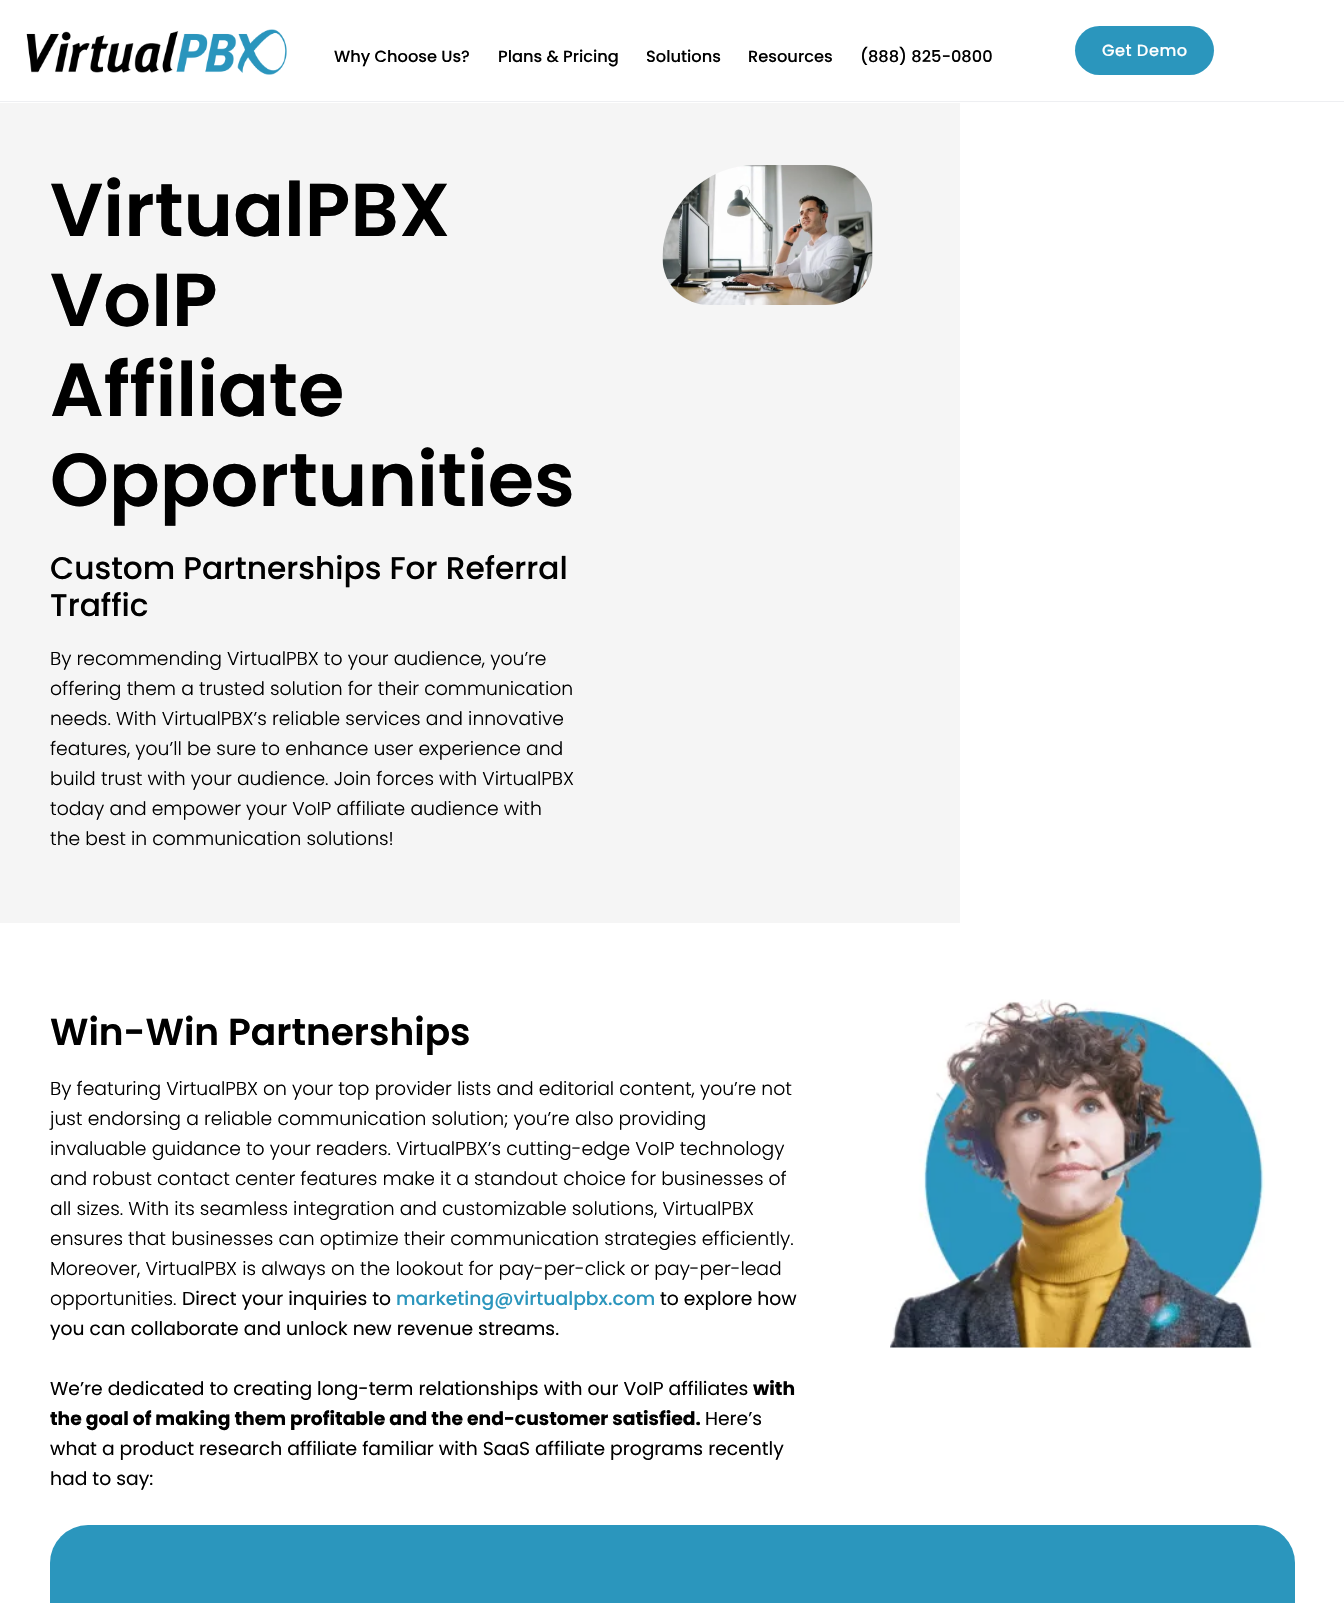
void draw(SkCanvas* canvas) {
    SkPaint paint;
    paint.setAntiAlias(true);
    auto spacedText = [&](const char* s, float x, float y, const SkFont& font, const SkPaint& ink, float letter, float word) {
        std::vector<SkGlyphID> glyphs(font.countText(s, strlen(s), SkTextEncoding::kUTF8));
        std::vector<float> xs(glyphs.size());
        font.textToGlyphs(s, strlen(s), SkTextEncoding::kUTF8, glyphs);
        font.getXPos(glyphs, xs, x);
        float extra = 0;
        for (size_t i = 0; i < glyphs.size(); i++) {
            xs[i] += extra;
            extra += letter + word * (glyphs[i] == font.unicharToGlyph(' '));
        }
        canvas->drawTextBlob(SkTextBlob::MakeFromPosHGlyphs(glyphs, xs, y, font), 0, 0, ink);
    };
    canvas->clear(0xFFFFFFFF);
    paint.setColor(0xFFEEEFF2);
    canvas->drawRect(SkRect::MakeXYWH(0, 101, 1344, 1), paint);
    canvas->drawImageRect(SkImages::DeferredFromEncodedData(SkData::MakeFromFileName("img1.png")), SkRect::MakeXYWH(26, 29, 261, 46), SkSamplingOptions());
    SkFont font1(fontMgr->matchFamilyStyle("Poppins", SkFontStyle(500, SkFontStyle::kNormal_Width, SkFontStyle::kUpright_Slant)), 16.25f);
    font1.setSubpixel(true);
    paint.setColor(0xFF000000);
    canvas->drawString("Why Choose Us?", 334, 62, font1, paint);
    canvas->drawString("Plans & Pricing", 498, 62, font1, paint);
    canvas->drawString("Solutions", 646, 62, font1, paint);
    canvas->drawString("Resources", 748, 62, font1, paint);
    canvas->drawString("(888) 825-0800", 860, 62, font1, paint);
    paint.setColor(0xFF2B96BD);
    canvas->drawRoundRect(SkRect::MakeXYWH(1075, 26, 139, 49), 24.5f, 24.5f, paint);
    paint.setColor(0xFFFFFFFF);
    spacedText("Get Demo", 1102, 56, font1, paint, 0.5f, 0);
    paint.setColor(0xFFF5F5F5);
    canvas->drawRect(SkRect::MakeXYWH(0, 103, 960, 820), paint);
    SkFont font2(fontMgr->matchFamilyStyle("Poppins", SkFontStyle(600, SkFontStyle::kNormal_Width, SkFontStyle::kUpright_Slant)), 75);
    font2.setSubpixel(true);
    paint.setColor(0xFF000000);
    canvas->drawString("VirtualPBX", 50, 236, font2, paint);
    canvas->drawString("VoIP", 50, 326, font2, paint);
    canvas->drawString("Affiliate", 50, 416, font2, paint);
    canvas->drawString("Opportunities", 50, 506, font2, paint);
    SkFont font3(fontMgr->matchFamilyStyle("Poppins", SkFontStyle(500, SkFontStyle::kNormal_Width, SkFontStyle::kUpright_Slant)), 31.25f);
    font3.setSubpixel(true);
    canvas->drawString("Custom Partnerships For Referral", 50, 579, font3, paint);
    canvas->drawString("Traffic", 50, 616, font3, paint);
    SkFont font4(fontMgr->matchFamilyStyle("Poppins", SkFontStyle(300, SkFontStyle::kNormal_Width, SkFontStyle::kUpright_Slant)), 18.75f);
    font4.setSubpixel(true);
    canvas->drawString("By recommending VirtualPBX to your audience, you’re", 50, 665, font4, paint);
    canvas->drawString("offering them a trusted solution for their communication", 50, 695, font4, paint);
    canvas->drawString("needs. With VirtualPBX’s reliable services and innovative", 50, 725, font4, paint);
    canvas->drawString("features, you’ll be sure to enhance user experience and", 50, 755, font4, paint);
    canvas->drawString("build trust with your audience. Join forces with VirtualPBX", 50, 785, font4, paint);
    canvas->drawString("today and empower your VoIP affiliate audience with", 50, 815, font4, paint);
    canvas->drawString("the best in communication solutions!", 50, 845, font4, paint);
    canvas->drawImageRect(SkImages::DeferredFromEncodedData(SkData::MakeFromFileName("img2.png")), SkRect::MakeXYWH(662, 165, 211, 140), SkSamplingOptions());
    SkFont font5(fontMgr->matchFamilyStyle("Poppins", SkFontStyle(600, SkFontStyle::kNormal_Width, SkFontStyle::kUpright_Slant)), 37.5f);
    font5.setSubpixel(true);
    canvas->drawString("Win-Win Partnerships", 50, 1045, font5, paint);
    canvas->drawString("By featuring VirtualPBX on your top provider lists and editorial content, you’re not", 50, 1095, font4, paint);
    canvas->drawString("just endorsing a reliable communication solution; you’re also providing", 50, 1125, font4, paint);
    canvas->drawString("invaluable guidance to your readers. VirtualPBX’s cutting-edge VoIP technology", 50, 1155, font4, paint);
    canvas->drawString("and robust contact center features make it a standout choice for businesses of", 50, 1185, font4, paint);
    canvas->drawString("all sizes. With its seamless integration and customizable solutions, VirtualPBX", 50, 1215, font4, paint);
    canvas->drawString("ensures that businesses can optimize their communication strategies efficiently.", 50, 1245, font4, paint);
    canvas->drawString("Moreover, VirtualPBX is always on the lookout for pay-per-click or pay-per-lead", 50, 1275, font4, paint);
    canvas->drawString("opportunities.", 50, 1305, font4, paint);
    SkFont font6(fontMgr->matchFamilyStyle("Poppins", SkFontStyle::Normal()), 18.75f);
    font6.setSubpixel(true);
    canvas->drawString("Direct your inquiries to", 182, 1305, font6, paint);
    SkFont font7(fontMgr->matchFamilyStyle("Poppins", SkFontStyle(500, SkFontStyle::kNormal_Width, SkFontStyle::kUpright_Slant)), 18.75f);
    font7.setSubpixel(true);
    paint.setColor(0xFF2B96BD);
    canvas->drawString("marketing@virtualpbx.com", 396, 1305, font7, paint);
    paint.setColor(0xFF000000);
    canvas->drawString("to explore how", 660, 1305, font6, paint);
    canvas->drawString("you can collaborate and unlock new revenue streams.", 50, 1335, font6, paint);
    canvas->drawString("We’re dedicated to creating long-term relationships with our VoIP affiliates", 50, 1395, font6, paint);
    SkFont font8(fontMgr->matchFamilyStyle("Poppins", SkFontStyle::Bold()), 18.75f);
    font8.setSubpixel(true);
    canvas->drawString("with", 753, 1395, font8, paint);
    canvas->drawString("the goal of making them profitable and the end-customer satisfied.", 50, 1425, font8, paint);
    canvas->drawString("Here’s", 705, 1425, font6, paint);
    canvas->drawString("what a product research affiliate familiar with SaaS affiliate programs recently", 50, 1455, font6, paint);
    canvas->drawString("had to say:", 50, 1485, font6, paint);
    canvas->drawImageRect(SkImages::DeferredFromEncodedData(SkData::MakeFromFileName("img3.png")), SkRect::MakeXYWH(890, 999, 375, 349), SkSamplingOptions());
    paint.setColor(0xFF2B96BD);
    canvas->drawRoundRect(SkRect::MakeXYWH(50, 1525, 1245, 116), 38, 38, paint);
}
